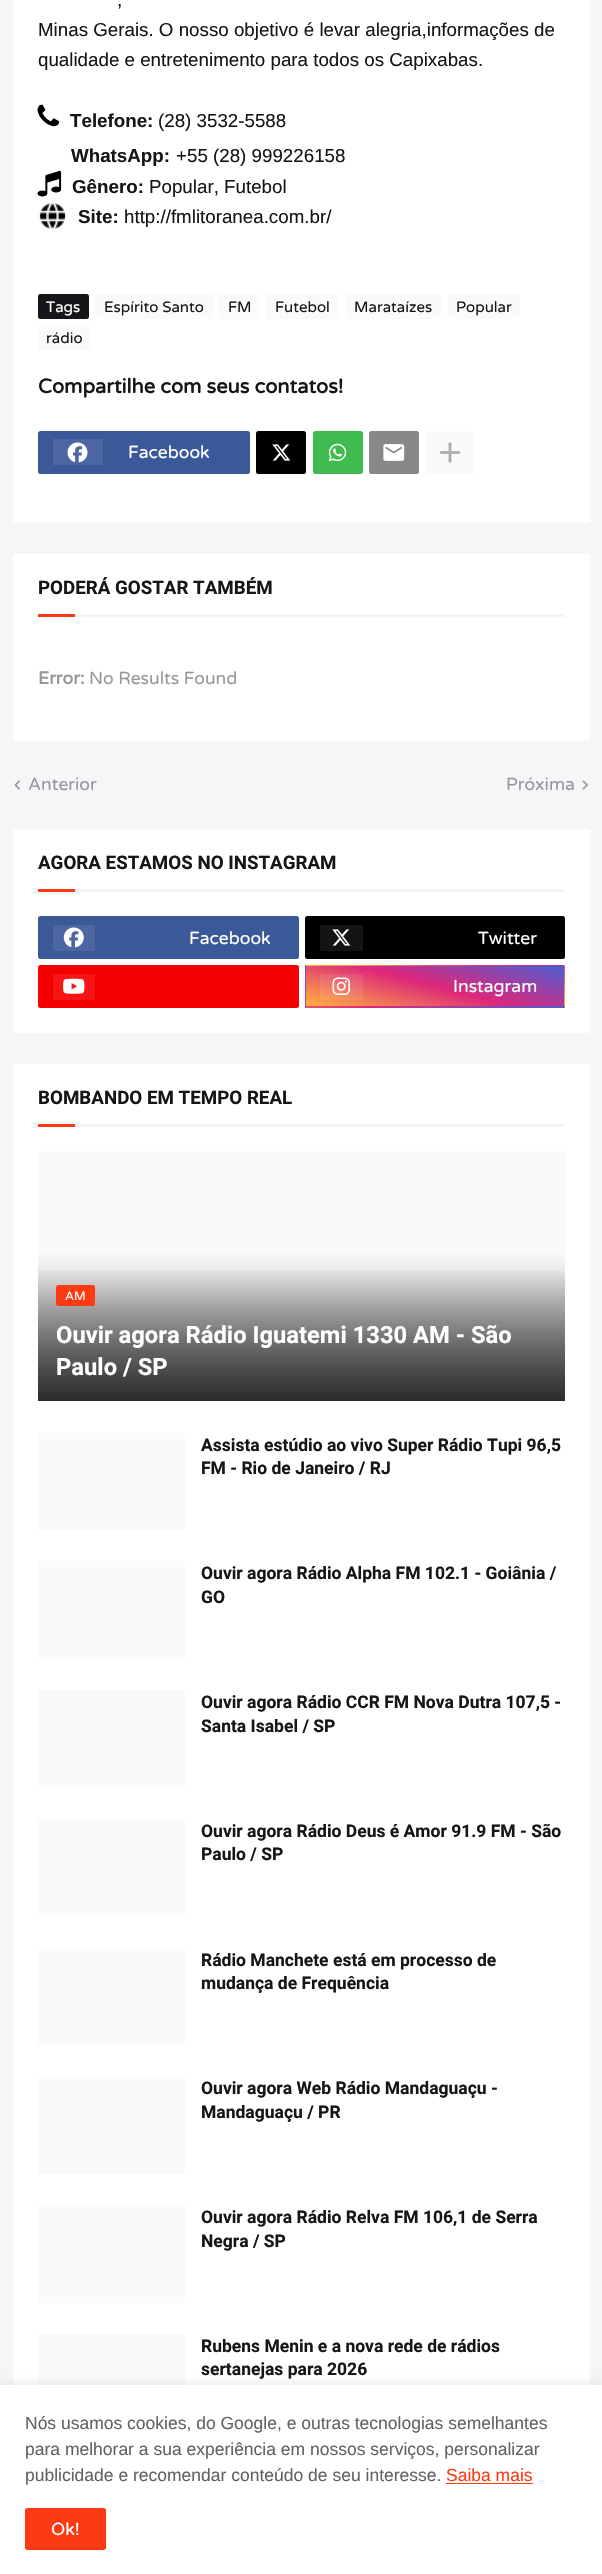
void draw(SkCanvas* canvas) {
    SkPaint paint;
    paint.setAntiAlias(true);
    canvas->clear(0xFFF5F6F7);
    paint.setColor(0xFFFFFFFF);
    canvas->drawRoundRect(SkRect::MakeXYWH(13, -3, 577, 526), 2.5f, 2.5f, paint);
    SkFont font1(fontMgr->matchFamilyStyle("Liberation Sans", SkFontStyle::Normal()), 18.75f);
    font1.setSubpixel(true);
    paint.setColor(0xFF16161A);
    canvas->drawString(",", 117, 6, font1, paint);
    canvas->drawString("Minas Gerais. O nosso objetivo é levar alegria,informações de", 38, 36, font1, paint);
    canvas->drawString("qualidade e entretenimento para todos os Capixabas.", 38, 66, font1, paint);
    canvas->drawImageRect(SkImages::DeferredFromEncodedData(SkData::MakeFromFileName("img1.png")), SkRect::MakeXYWH(37, 104, 23, 23), SkSamplingOptions());
    SkFont font2(fontMgr->matchFamilyStyle("Liberation Sans", SkFontStyle::Bold()), 18.75f);
    font2.setSubpixel(true);
    canvas->drawString("Telefone:", 70, 127, font2, paint);
    canvas->drawString("(28) 3532-5588", 158, 127, font1, paint);
    canvas->drawString("WhatsApp:", 71, 162, font2, paint);
    canvas->drawString("+55 (28) 999226158", 176, 162, font1, paint);
    canvas->drawImageRect(SkImages::DeferredFromEncodedData(SkData::MakeFromFileName("img2.png")), SkRect::MakeXYWH(37, 170, 25, 27), SkSamplingOptions());
    canvas->drawString("Gênero:", 72, 193, font2, paint);
    canvas->drawString("Popular, Futebol", 149, 193, font1, paint);
    canvas->drawImageRect(SkImages::DeferredFromEncodedData(SkData::MakeFromFileName("img3.png")), SkRect::MakeXYWH(39, 203, 27, 26), SkSamplingOptions());
    canvas->drawString("Site:", 78, 223, font2, paint);
    canvas->drawString("http://fmlitoranea.com.br/", 124, 223, font1, paint);
    canvas->drawRoundRect(SkRect::MakeXYWH(38, 294, 51, 25), 2.5f, 2.5f, paint);
    SkFont font3(fontMgr->matchFamilyStyle("Varela Round", SkFontStyle::Normal()), 15);
    font3.setSubpixel(true);
    paint.setColor(0xFFFFFFFF);
    canvas->drawString("Tags", 46, 312, font3, paint);
    paint.setColor(0xFFFAFAFA);
    canvas->drawRoundRect(SkRect::MakeXYWH(95, 294, 118, 25), 2.5f, 2.5f, paint);
    paint.setColor(0xFF16161A);
    canvas->drawString("Espírito Santo", 104, 312, font3, paint);
    paint.setColor(0xFFFAFAFA);
    canvas->drawRoundRect(SkRect::MakeXYWH(219, 294, 41, 25), 2.5f, 2.5f, paint);
    paint.setColor(0xFF16161A);
    canvas->drawString("FM", 228, 312, font3, paint);
    paint.setColor(0xFFFAFAFA);
    canvas->drawRoundRect(SkRect::MakeXYWH(266, 294, 73, 25), 2.5f, 2.5f, paint);
    paint.setColor(0xFF16161A);
    canvas->drawString("Futebol", 275, 312, font3, paint);
    paint.setColor(0xFFFAFAFA);
    canvas->drawRoundRect(SkRect::MakeXYWH(345, 294, 96, 25), 2.5f, 2.5f, paint);
    paint.setColor(0xFF16161A);
    canvas->drawString("Marataízes", 354, 312, font3, paint);
    paint.setColor(0xFFFAFAFA);
    canvas->drawRoundRect(SkRect::MakeXYWH(448, 294, 72, 25), 2.5f, 2.5f, paint);
    paint.setColor(0xFF16161A);
    canvas->drawString("Popular", 456, 312, font3, paint);
    paint.setColor(0xFFFAFAFA);
    canvas->drawRoundRect(SkRect::MakeXYWH(38, 325, 53, 25), 2.5f, 2.5f, paint);
    paint.setColor(0xFF16161A);
    canvas->drawString("rádio", 46, 343, font3, paint);
    SkFont font4(fontMgr->matchFamilyStyle("Varela Round", SkFontStyle::Bold()), 20);
    font4.setSubpixel(true);
    canvas->drawString("Compartilhe com seus contatos!", 38, 393, font4, paint);
    paint.setColor(0xFF3B5999);
    canvas->drawRoundRect(SkRect::MakeXYWH(38, 431, 212, 43), 2.5f, 2.5f, paint);
    paint.setColor(0xFF4B66A1);
    canvas->drawRect(SkRect::MakeXYWH(53, 439, 50, 26), paint);
    canvas->drawImageRect(SkImages::DeferredFromEncodedData(SkData::MakeFromFileName("img4.png")), SkRect::MakeXYWH(67, 442, 21, 21), SkSamplingOptions());
    SkFont font5(fontMgr->matchFamilyStyle("Varela Round", SkFontStyle::Normal()), 17.5f);
    font5.setSubpixel(true);
    paint.setColor(0xFFFFFFFF);
    canvas->drawString("Facebook", 128, 458, font5, paint);
    paint.setColor(0xFF000000);
    canvas->drawRoundRect(SkRect::MakeXYWH(256, 431, 50, 43), 2.5f, 2.5f, paint);
    canvas->drawImageRect(SkImages::DeferredFromEncodedData(SkData::MakeFromFileName("img5.png")), SkRect::MakeXYWH(272, 444, 19, 17), SkSamplingOptions());
    paint.setColor(0xFF3FBB50);
    canvas->drawRoundRect(SkRect::MakeXYWH(313, 431, 50, 43), 2.5f, 2.5f, paint);
    canvas->drawImageRect(SkImages::DeferredFromEncodedData(SkData::MakeFromFileName("img6.png")), SkRect::MakeXYWH(328, 443, 19, 19), SkSamplingOptions());
    paint.setColor(0xFF888888);
    canvas->drawRoundRect(SkRect::MakeXYWH(369, 431, 50, 43), 2.5f, 2.5f, paint);
    canvas->drawImageRect(SkImages::DeferredFromEncodedData(SkData::MakeFromFileName("img7.png")), SkRect::MakeXYWH(383, 444, 22, 17), SkSamplingOptions());
    paint.setColor(0xFFFAFAFA);
    canvas->drawRoundRect(SkRect::MakeXYWH(425, 431, 50, 43), 2.5f, 2.5f, paint);
    canvas->drawImageRect(SkImages::DeferredFromEncodedData(SkData::MakeFromFileName("img8.png")), SkRect::MakeXYWH(439, 442, 22, 21), SkSamplingOptions());
    paint.setColor(0xFFFFFFFF);
    canvas->drawRoundRect(SkRect::MakeXYWH(13, 554, 577, 187), 2.5f, 2.5f, paint);
    paint.setColor(0xFFF5F5F5);
    canvas->drawRect(SkRect::MakeXYWH(75, 614, 490, 3), paint);
    SkFont font6(fontMgr->matchFamilyStyle("Roboto", SkFontStyle::Bold()), 18.75f);
    font6.setSubpixel(true);
    paint.setColor(0xFF16161A);
    canvas->drawString("PODERÁ GOSTAR TAMBÉM", 38, 594, font6, paint);
    paint.setColor(0xFFFD3A13);
    canvas->drawRect(SkRect::MakeXYWH(38, 614, 37, 3), paint);
    SkFont font7(fontMgr->matchFamilyStyle("Varela Round", SkFontStyle::Bold()), 17.5f);
    font7.setSubpixel(true);
    paint.setColor(0xFF97979D);
    canvas->drawString("Error:", 38, 684, font7, paint);
    canvas->drawString("No Results Found", 89, 684, font5, paint);
    canvas->drawImageRect(SkImages::DeferredFromEncodedData(SkData::MakeFromFileName("img9.png")), SkRect::MakeXYWH(14, 780, 6, 10), SkSamplingOptions());
    canvas->drawString("Anterior", 28, 790, font5, paint);
    canvas->drawString("Próxima", 506, 790, font5, paint);
    canvas->drawImageRect(SkImages::DeferredFromEncodedData(SkData::MakeFromFileName("img10.png")), SkRect::MakeXYWH(582, 780, 6, 10), SkSamplingOptions());
    paint.setColor(0xFFFFFFFF);
    canvas->drawRoundRect(SkRect::MakeXYWH(13, 829, 577, 204), 2.5f, 2.5f, paint);
    paint.setColor(0xFFF5F5F5);
    canvas->drawRect(SkRect::MakeXYWH(75, 889, 490, 3), paint);
    paint.setColor(0xFF16161A);
    canvas->drawString("AGORA ESTAMOS NO INSTAGRAM", 38, 869, font6, paint);
    paint.setColor(0xFFFD3A13);
    canvas->drawRect(SkRect::MakeXYWH(38, 889, 37, 3), paint);
    paint.setColor(0xFF3B5999);
    canvas->drawRoundRect(SkRect::MakeXYWH(38, 916, 261, 43), 2.5f, 2.5f, paint);
    paint.setColor(0xFF4B66A1);
    canvas->drawRect(SkRect::MakeXYWH(53, 925, 42, 26), paint);
    canvas->drawImageRect(SkImages::DeferredFromEncodedData(SkData::MakeFromFileName("img11.png")), SkRect::MakeXYWH(63, 927, 21, 21), SkSamplingOptions());
    paint.setColor(0xFFFFFFFF);
    canvas->drawString("Facebook", 189, 944, font5, paint);
    paint.setColor(0xFF000000);
    canvas->drawRoundRect(SkRect::MakeXYWH(305, 916, 260, 43), 2.5f, 2.5f, paint);
    paint.setColor(0xFF141414);
    canvas->drawRect(SkRect::MakeXYWH(320, 925, 43, 26), paint);
    canvas->drawImageRect(SkImages::DeferredFromEncodedData(SkData::MakeFromFileName("img12.png")), SkRect::MakeXYWH(332, 929, 19, 17), SkSamplingOptions());
    paint.setColor(0xFFFFFFFF);
    canvas->drawString("Twitter", 478, 944, font5, paint);
    paint.setColor(0xFFF50000);
    canvas->drawRoundRect(SkRect::MakeXYWH(38, 965, 261, 43), 2.5f, 2.5f, paint);
    paint.setColor(0xFFF61414);
    canvas->drawRect(SkRect::MakeXYWH(53, 974, 42, 26), paint);
    canvas->drawImageRect(SkImages::DeferredFromEncodedData(SkData::MakeFromFileName("img13.png")), SkRect::MakeXYWH(63, 978, 22, 16), SkSamplingOptions());
    {
        const SkColor colors[] = {0xFFFFB13D, 0xFFDD277B, 0xFF4D5ED4};
        const float stops[] = {0, 0.5f, 1};
        const SkPoint ends[] = {{164, 997}, {191, 895}};
        paint.setShader(SkGradientShader::MakeLinear(ends, colors, stops, 3, SkTileMode::kClamp));
        paint.setAlpha(255);
    }
    canvas->drawRect(SkRect::MakeXYWH(305, 965, 1, 1), paint);
    {
        const SkColor colors[] = {0xFFFFB13D, 0xFFDD277B, 0xFF4D5ED4};
        const float stops[] = {0, 0.5f, 1};
        const SkPoint ends[] = {{421, 997}, {449, 895}};
        paint.setShader(SkGradientShader::MakeLinear(ends, colors, stops, 3, SkTileMode::kClamp));
        paint.setAlpha(255);
    }
    canvas->drawRect(SkRect::MakeXYWH(306, 965, 258, 1), paint);
    {
        const SkColor colors[] = {0xFFFFB13D, 0xFFDD277B, 0xFF4D5ED4};
        const float stops[] = {0, 0.5f, 1};
        const SkPoint ends[] = {{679, 997}, {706, 895}};
        paint.setShader(SkGradientShader::MakeLinear(ends, colors, stops, 3, SkTileMode::kClamp));
        paint.setAlpha(255);
    }
    canvas->drawRect(SkRect::MakeXYWH(564, 965, 1, 1), paint);
    {
        const SkColor colors[] = {0xFFFFB13D, 0xFFDD277B, 0xFF4D5ED4};
        const float stops[] = {0, 0.5f, 1};
        const SkPoint ends[] = {{164, 1037}, {191, 935}};
        paint.setShader(SkGradientShader::MakeLinear(ends, colors, stops, 3, SkTileMode::kClamp));
        paint.setAlpha(255);
    }
    canvas->drawRect(SkRect::MakeXYWH(305, 966, 1, 40), paint);
    {
        const SkColor colors[] = {0xFFFFB13D, 0xFFDD277B, 0xFF4D5ED4};
        const float stops[] = {0, 0.5f, 1};
        const SkPoint ends[] = {{421, 1037}, {449, 935}};
        paint.setShader(SkGradientShader::MakeLinear(ends, colors, stops, 3, SkTileMode::kClamp));
        paint.setAlpha(255);
    }
    canvas->drawRect(SkRect::MakeXYWH(306, 966, 258, 40), paint);
    {
        const SkColor colors[] = {0xFFFFB74D, 0xFFE03886, 0xFF5B6BD7};
        const float stops[] = {0, 0.5f, 1};
        const SkPoint ends[] = {{421, 1037}, {449, 935}};
        paint.setShader(SkGradientShader::MakeLinear(ends, colors, stops, 3, SkTileMode::kClamp));
        paint.setAlpha(255);
    }
    canvas->drawRect(SkRect::MakeXYWH(320, 974, 43, 26), paint);
    {
        const SkColor colors[] = {0xFFFFB13D, 0xFFDD277B, 0xFF4D5ED4};
        const float stops[] = {0, 0.5f, 1};
        const SkPoint ends[] = {{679, 1037}, {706, 935}};
        paint.setShader(SkGradientShader::MakeLinear(ends, colors, stops, 3, SkTileMode::kClamp));
        paint.setAlpha(255);
    }
    canvas->drawRect(SkRect::MakeXYWH(564, 966, 1, 40), paint);
    {
        const SkColor colors[] = {0xFFFFB13D, 0xFFDD277B, 0xFF4D5ED4};
        const float stops[] = {0, 0.5f, 1};
        const SkPoint ends[] = {{164, 1077}, {191, 975}};
        paint.setShader(SkGradientShader::MakeLinear(ends, colors, stops, 3, SkTileMode::kClamp));
        paint.setAlpha(255);
    }
    canvas->drawRect(SkRect::MakeXYWH(305, 1006, 1, 2), paint);
    {
        const SkColor colors[] = {0xFFFFB13D, 0xFFDD277B, 0xFF4D5ED4};
        const float stops[] = {0, 0.5f, 1};
        const SkPoint ends[] = {{421, 1077}, {449, 975}};
        paint.setShader(SkGradientShader::MakeLinear(ends, colors, stops, 3, SkTileMode::kClamp));
        paint.setAlpha(255);
    }
    canvas->drawRect(SkRect::MakeXYWH(306, 1006, 258, 2), paint);
    {
        const SkColor colors[] = {0xFFFFB13D, 0xFFDD277B, 0xFF4D5ED4};
        const float stops[] = {0, 0.5f, 1};
        const SkPoint ends[] = {{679, 1077}, {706, 975}};
        paint.setShader(SkGradientShader::MakeLinear(ends, colors, stops, 3, SkTileMode::kClamp));
        paint.setAlpha(255);
    }
    canvas->drawRect(SkRect::MakeXYWH(564, 1006, 1, 2), paint);
    canvas->drawImageRect(SkImages::DeferredFromEncodedData(SkData::MakeFromFileName("img14.png")), SkRect::MakeXYWH(332, 977, 18, 18), SkSamplingOptions());
    paint.setShader(nullptr);
    paint.setColor(0xFFFFFFFF);
    canvas->drawString("Instagram", 453, 992, font5, paint);
    canvas->drawRoundRect(SkRect::MakeXYWH(13, 1064, 577, 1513), 2.5f, 2.5f, paint);
    paint.setColor(0xFFF5F5F5);
    canvas->drawRect(SkRect::MakeXYWH(75, 1124, 490, 3), paint);
    paint.setColor(0xFF16161A);
    canvas->drawString("BOMBANDO EM TEMPO REAL", 38, 1104, font6, paint);
    paint.setColor(0xFFFD3A13);
    canvas->drawRect(SkRect::MakeXYWH(38, 1124, 37, 3), paint);
    paint.setColor(0xFFFAFAFA);
    canvas->drawRect(SkRect::MakeXYWH(38, 1151, 527, 50), paint);
    {
        const SkColor colors[] = {0xFFFAFAFA, 0xFF7D7D7D};
        const float stops[] = {0.25f, 1};
        const SkPoint ends[] = {{301, 1201}, {301, 1401}};
        paint.setShader(SkGradientShader::MakeLinear(ends, colors, stops, 2, SkTileMode::kClamp));
        paint.setAlpha(255);
    }
    canvas->drawRect(SkRect::MakeXYWH(38, 1201, 527, 200), paint);
    {
        const SkColor colors[] = {0x00000000, 0xA6000000};
        const float stops[] = {0, 1};
        const SkPoint ends[] = {{301, 1266}, {301, 1401}};
        paint.setShader(SkGradientShader::MakeLinear(ends, colors, stops, 2, SkTileMode::kClamp));
        paint.setAlpha(255);
    }
    canvas->drawRect(SkRect::MakeXYWH(38, 1270, 527, 131), paint);
    paint.setShader(nullptr);
    paint.setColor(0xFFFD3A13);
    canvas->drawRoundRect(SkRect::MakeXYWH(56, 1285, 39, 21), 2.5f, 2.5f, paint);
    SkFont font8(fontMgr->matchFamilyStyle("Varela Round", SkFontStyle::Normal()), 12);
    font8.setSubpixel(true);
    paint.setColor(0xFFFFFFFF);
    canvas->drawString("AM", 65, 1300, font8, paint);
    SkFont font9(fontMgr->matchFamilyStyle("Roboto", SkFontStyle::Bold()), 23.75f);
    font9.setSubpixel(true);
    canvas->drawString("Ouvir agora Rádio Iguatemi 1330 AM - São", 56, 1343, font9, paint);
    canvas->drawString("Paulo / SP", 56, 1375, font9, paint);
    paint.setColor(0xFFFAFAFA);
    canvas->drawRect(SkRect::MakeXYWH(38, 1433, 147, 97), paint);
    SkFont font10(fontMgr->matchFamilyStyle("Roboto", SkFontStyle::Bold()), 17.5f);
    font10.setSubpixel(true);
    paint.setColor(0xFF16161A);
    canvas->drawString("Assista estúdio ao vivo Super Rádio Tupi 96,5", 201, 1451, font10, paint);
    canvas->drawString("FM - Rio de Janeiro / RJ", 201, 1474, font10, paint);
    paint.setColor(0xFFFAFAFA);
    canvas->drawRect(SkRect::MakeXYWH(38, 1561, 147, 98), paint);
    paint.setColor(0xFF16161A);
    canvas->drawString("Ouvir agora Rádio Alpha FM 102.1 - Goiânia /", 201, 1579, font10, paint);
    canvas->drawString("GO", 201, 1603, font10, paint);
    paint.setColor(0xFFFAFAFA);
    canvas->drawRect(SkRect::MakeXYWH(38, 1690, 147, 98), paint);
    paint.setColor(0xFF16161A);
    canvas->drawString("Ouvir agora Rádio CCR FM Nova Dutra 107,5 -", 201, 1708, font10, paint);
    canvas->drawString("Santa Isabel / SP", 201, 1732, font10, paint);
    paint.setColor(0xFFFAFAFA);
    canvas->drawRect(SkRect::MakeXYWH(38, 1819, 147, 97), paint);
    paint.setColor(0xFF16161A);
    canvas->drawString("Ouvir agora Rádio Deus é Amor 91.9 FM - São", 201, 1837, font10, paint);
    canvas->drawString("Paulo / SP", 201, 1860, font10, paint);
    paint.setColor(0xFFFAFAFA);
    canvas->drawRect(SkRect::MakeXYWH(38, 1948, 147, 97), paint);
    paint.setColor(0xFF16161A);
    canvas->drawString("Rádio Manchete está em processo de", 201, 1966, font10, paint);
    canvas->drawString("mudança de Frequência", 201, 1989, font10, paint);
    paint.setColor(0xFFFAFAFA);
    canvas->drawRect(SkRect::MakeXYWH(38, 2076, 147, 98), paint);
    paint.setColor(0xFF16161A);
    canvas->drawString("Ouvir agora Web Rádio Mandaguaçu -", 201, 2094, font10, paint);
    canvas->drawString("Mandaguaçu / PR", 201, 2118, font10, paint);
    paint.setColor(0xFFFAFAFA);
    canvas->drawRect(SkRect::MakeXYWH(38, 2205, 147, 98), paint);
    paint.setColor(0xFF16161A);
    canvas->drawString("Ouvir agora Rádio Relva FM 106,1 de Serra", 201, 2223, font10, paint);
    canvas->drawString("Negra / SP", 201, 2247, font10, paint);
    paint.setColor(0xFFFAFAFA);
    canvas->drawRect(SkRect::MakeXYWH(38, 2334, 147, 51), paint);
    paint.setColor(0xFF16161A);
    canvas->drawString("Rubens Menin e a nova rede de rádios", 201, 2352, font10, paint);
    canvas->drawString("sertanejas para 2026", 201, 2375, font10, paint);
    paint.setColor(0x1A000000);
    paint.setMaskFilter(SkMaskFilter::MakeBlur(kNormal_SkBlurStyle, 6));
    canvas->drawRect(SkRect::MakeXYWH(0, 2385, 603, 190), paint);
    paint.setMaskFilter(nullptr);
    paint.setColor(0xFFFFFFFF);
    canvas->drawRect(SkRect::MakeXYWH(0, 2385, 602, 189), paint);
    SkFont font11(fontMgr->matchFamilyStyle("Liberation Sans", SkFontStyle::Normal()), 17.5f);
    font11.setSubpixel(true);
    paint.setColor(0xFF626262);
    canvas->drawString("Nós usamos cookies, do Google, e outras tecnologias semelhantes", 25, 2429, font11, paint);
    canvas->drawString("para melhorar a sua experiência em nossos serviços, personalizar", 25, 2455, font11, paint);
    canvas->drawString("publicidade e recomendar conteúdo de seu interesse.", 25, 2481, font11, paint);
    paint.setColor(0xFFFD3A13);
    canvas->drawString("Saiba mais", 446, 2481, font11, paint);
    canvas->drawRect(SkRect::MakeXYWH(446, 2483, 87, 1), paint);
    canvas->drawRoundRect(SkRect::MakeXYWH(25, 2508, 81, 42), 2.5f, 2.5f, paint);
    paint.setColor(0xFFFFFFFF);
    canvas->drawString("Ok!", 51, 2535, font5, paint);
}
